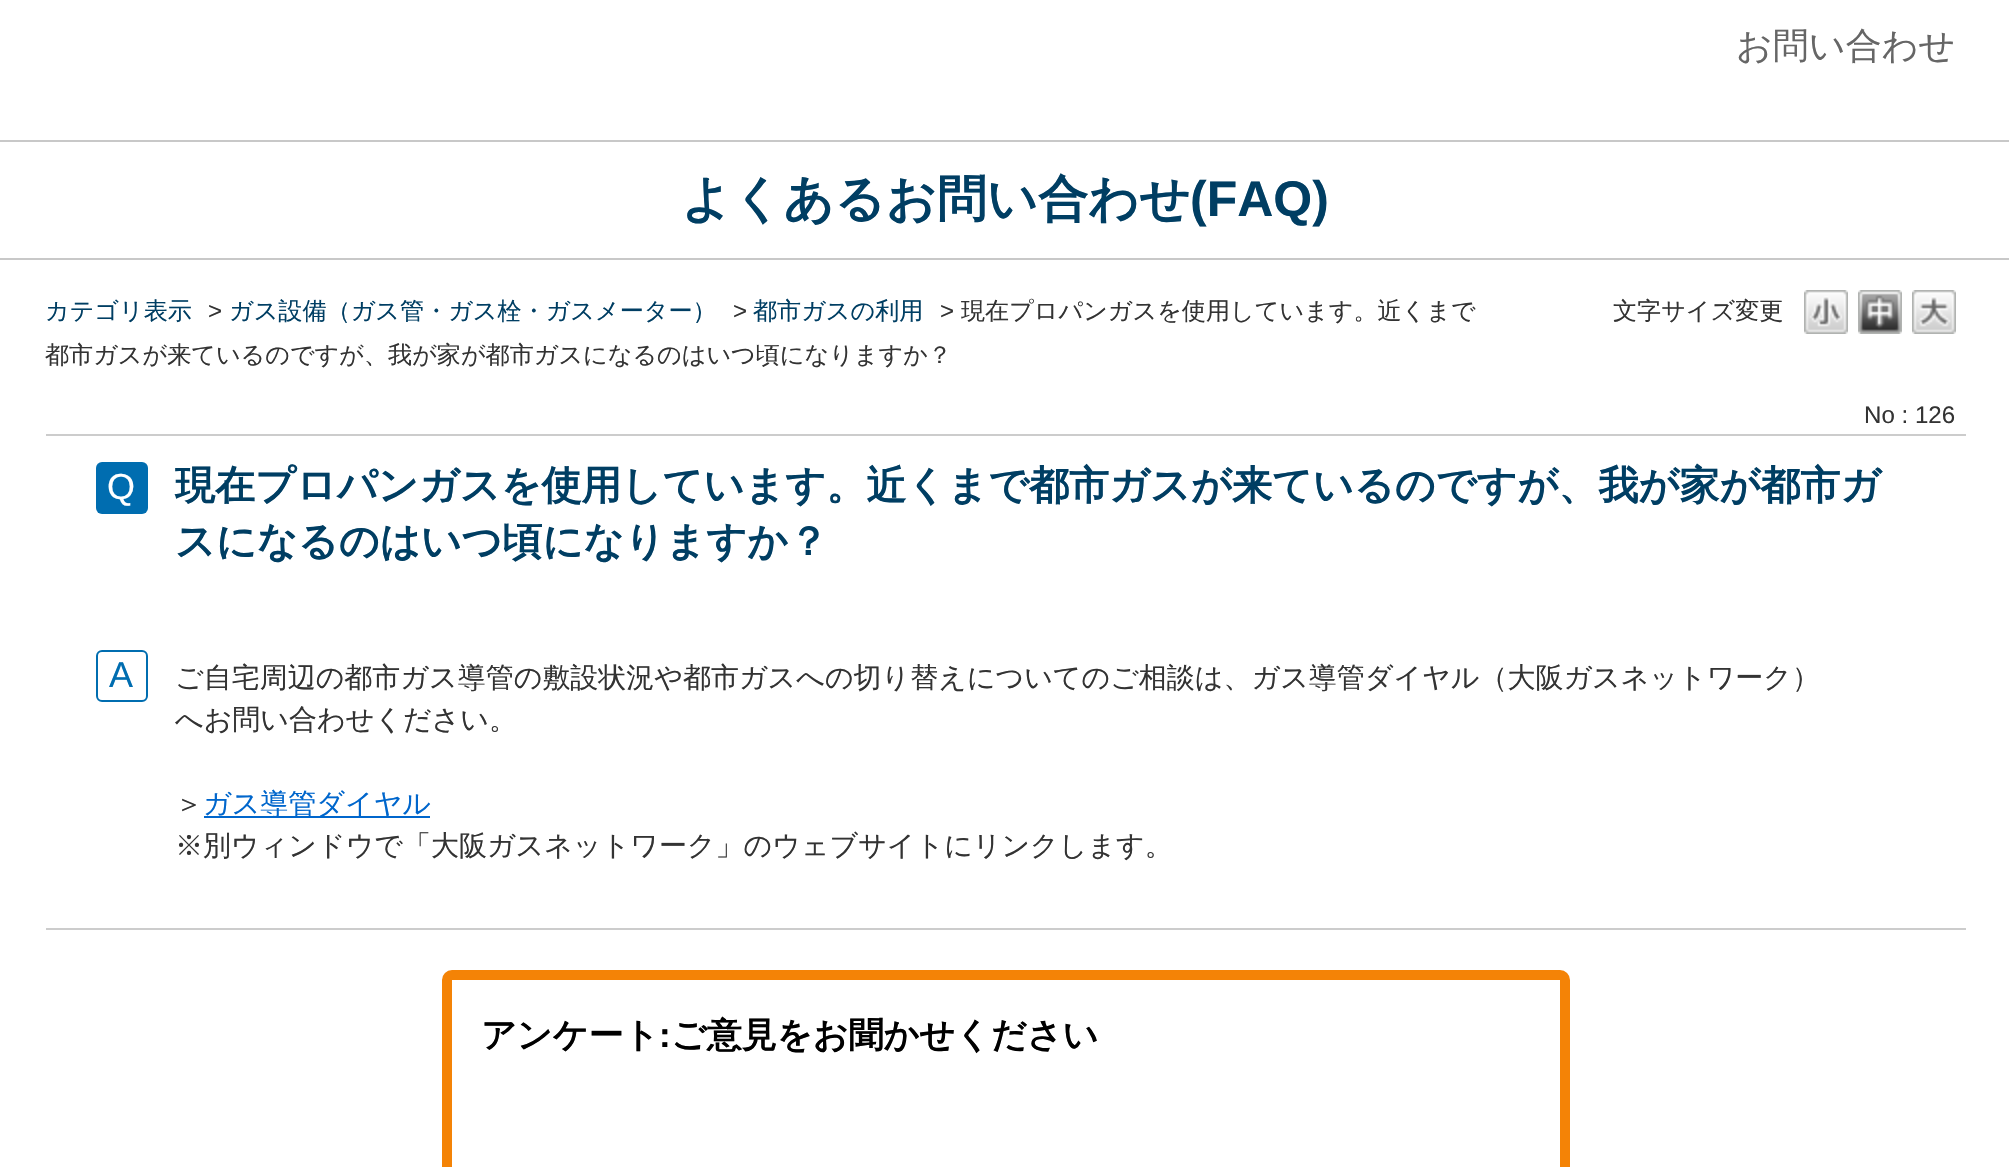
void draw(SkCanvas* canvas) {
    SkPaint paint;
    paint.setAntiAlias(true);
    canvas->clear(0xFFFFFFFF);
    SkFont font1(fontMgr->matchFamilyStyle("WenQuanYi Zen Hei", SkFontStyle(500, SkFontStyle::kNormal_Width, SkFontStyle::kUpright_Slant)), 36);
    font1.setSubpixel(true);
    paint.setColor(0xFF666666);
    canvas->drawString("お問い合わせ", 1736, 58, font1, paint);
    paint.setColor(0xFFC8C8C8);
    canvas->drawRect(SkRect::MakeXYWH(0, 140, 2009, 2), paint);
    canvas->drawRect(SkRect::MakeXYWH(0, 258, 2009, 2), paint);
    SkFont font2(fontMgr->matchFamilyStyle("WenQuanYi Zen Hei", SkFontStyle::Bold()), 50);
    font2.setSubpixel(true);
    paint.setColor(0xFF003E63);
    canvas->drawString("よくあるお問い合わせ", 681, 216, font2, paint);
    SkFont font3(fontMgr->matchFamilyStyle("Liberation Sans", SkFontStyle::Bold()), 50);
    font3.setSubpixel(true);
    canvas->drawString("(FAQ)", 1190, 216, font3, paint);
    SkFont font4(fontMgr->matchFamilyStyle("WenQuanYi Zen Hei", SkFontStyle(500, SkFontStyle::kNormal_Width, SkFontStyle::kUpright_Slant)), 24.1f);
    font4.setSubpixel(true);
    canvas->drawString("カテゴリ表示", 45, 319, font4, paint);
    SkFont font5(fontMgr->matchFamilyStyle("Liberation Sans", SkFontStyle::Normal()), 24.1f);
    font5.setSubpixel(true);
    paint.setColor(0xFF333333);
    canvas->drawString(">", 208, 319, font5, paint);
    paint.setColor(0xFF003E63);
    canvas->drawString("ガス設備（ガス管・ガス栓・ガスメーター）", 229, 319, font4, paint);
    paint.setColor(0xFF333333);
    canvas->drawString(">", 733, 319, font5, paint);
    paint.setColor(0xFF003E63);
    canvas->drawString("都市ガスの利用", 753, 319, font4, paint);
    paint.setColor(0xFF333333);
    canvas->drawString(">", 940, 319, font5, paint);
    canvas->drawString("現在プロパンガスを使用しています。近くまで", 961, 319, font4, paint);
    canvas->drawString("都市ガスが来ているのですが、我が家が都市ガスになるのはいつ頃になりますか？", 45, 363, font4, paint);
    canvas->drawString("文字サイズ変更", 1613, 319, font4, paint);
    canvas->drawImageRect(SkImages::DeferredFromEncodedData(SkData::MakeFromFileName("img1.png")), SkRect::MakeXYWH(1804, 290, 44, 44), SkSamplingOptions());
    canvas->drawImageRect(SkImages::DeferredFromEncodedData(SkData::MakeFromFileName("img2.png")), SkRect::MakeXYWH(1858, 290, 44, 44), SkSamplingOptions());
    canvas->drawImageRect(SkImages::DeferredFromEncodedData(SkData::MakeFromFileName("img3.png")), SkRect::MakeXYWH(1912, 290, 44, 44), SkSamplingOptions());
    paint.setColor(0xFFCCCCCC);
    canvas->drawRect(SkRect::MakeXYWH(46, 434, 1920, 2), paint);
    paint.setColor(0xFF333333);
    canvas->drawString("No : 126", 1864, 423, font5, paint);
    paint.setColor(0xFF006DB0);
    canvas->drawRoundRect(SkRect::MakeXYWH(96, 462, 52, 52), 6, 6, paint);
    SkFont font6(fontMgr->matchFamilyStyle("Liberation Sans", SkFontStyle::Normal()), 36);
    font6.setSubpixel(true);
    paint.setColor(0xFFFFFFFF);
    canvas->drawString("Q", 107, 499, font6, paint);
    SkFont font7(fontMgr->matchFamilyStyle("WenQuanYi Zen Hei", SkFontStyle::Bold()), 40);
    font7.setSubpixel(true);
    paint.setColor(0xFF003E63);
    canvas->drawString("現在プロパンガスを使用しています。近くまで都市ガスが来ているのですが、我が家が都市ガ", 175, 499, font7, paint);
    canvas->drawString("スになるのはいつ頃になりますか？", 175, 555, font7, paint);
    paint.setStyle(SkPaint::kStroke_Style);
    paint.setStrokeWidth(2);
    paint.setColor(0xFF006DB0);
    canvas->drawRoundRect(SkRect::MakeXYWH(97, 651, 50, 50), 5, 5, paint);
    paint.setStyle(SkPaint::kFill_Style);
    canvas->drawString("A", 109, 687, font6, paint);
    paint.setColor(0xFFCCCCCC);
    canvas->drawRect(SkRect::MakeXYWH(46, 928, 1920, 2), paint);
    SkFont font8(fontMgr->matchFamilyStyle("WenQuanYi Zen Hei", SkFontStyle(500, SkFontStyle::kNormal_Width, SkFontStyle::kUpright_Slant)), 28);
    font8.setSubpixel(true);
    paint.setColor(0xFF333333);
    canvas->drawString("ご自宅周辺の都市ガス導管の敷設状況や都市ガスへの切り替えについてのご相談は、ガス導管ダイヤル（大阪ガスネットワーク）", 175, 687, font8, paint);
    canvas->drawString("へお問い合わせください。", 175, 729, font8, paint);
    canvas->drawString("＞", 175, 813, font8, paint);
    paint.setColor(0xFF0066CC);
    canvas->drawRect(SkRect::MakeXYWH(204, 816, 226, 2), paint);
    canvas->drawString("ガス導管ダイヤル", 203, 813, font8, paint);
    paint.setColor(0xFF333333);
    canvas->drawString("※別ウィンドウで「大阪ガスネットワーク」のウェブサイトにリンクします。", 175, 855, font8, paint);
    paint.setStyle(SkPaint::kStroke_Style);
    paint.setStrokeWidth(10);
    paint.setColor(0xFFF48306);
    canvas->drawRoundRect(SkRect::MakeXYWH(447, 975, 1118, 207), 5, 5, paint);
    SkFont font9(fontMgr->matchFamilyStyle("WenQuanYi Zen Hei", SkFontStyle::Bold()), 35);
    font9.setSubpixel(true);
    paint.setStyle(SkPaint::kFill_Style);
    paint.setColor(0xFF000000);
    canvas->drawString("アンケート", 481, 1047, font9, paint);
    SkFont font10(fontMgr->matchFamilyStyle("Liberation Sans", SkFontStyle::Bold()), 35);
    font10.setSubpixel(true);
    canvas->drawString(":", 659, 1047, font10, paint);
    canvas->drawString("ご意見をお聞かせください", 671, 1047, font9, paint);
}
